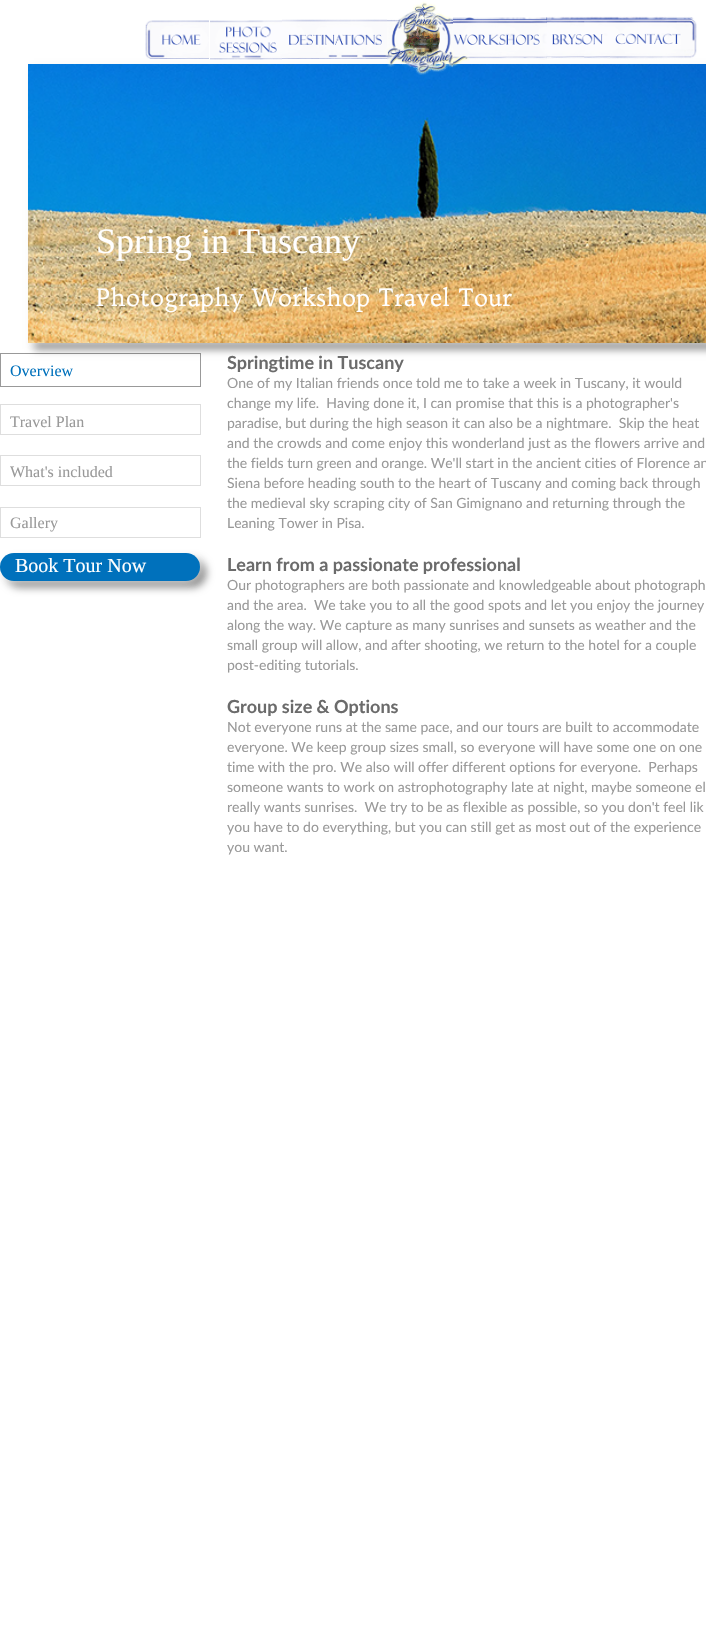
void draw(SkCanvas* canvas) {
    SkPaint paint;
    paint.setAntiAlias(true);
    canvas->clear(0xFFFFFFFF);
    paint.setStyle(SkPaint::kStroke_Style);
    paint.setStrokeWidth(1);
    paint.setColor(0xFF999999);
    canvas->drawRect(SkRect::MakeXYWH(0.5f, 353.5f, 200, 33), paint);
    paint.setStyle(SkPaint::kFill_Style);
    paint.setColor(0x80000000);
    paint.setMaskFilter(SkMaskFilter::MakeBlur(kNormal_SkBlurStyle, 4));
    canvas->drawRect(SkRect::MakeXYWH(34, 70, 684, 279), paint);
    paint.setMaskFilter(nullptr);
    paint.setColor(0x80FFFFFF);
    paint.setMaskFilter(SkMaskFilter::MakeBlur(kNormal_SkBlurStyle, 4));
    canvas->drawRect(SkRect::MakeXYWH(28, 64, 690, 279), paint);
    paint.setMaskFilter(nullptr);
    paint.setMaskFilter(SkMaskFilter::MakeBlur(kNormal_SkBlurStyle, 4));
    canvas->drawRect(SkRect::MakeXYWH(28, 64, 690, 279), paint);
    paint.setMaskFilter(nullptr);
    canvas->drawImageRect(SkImages::DeferredFromEncodedData(SkData::MakeFromFileName("img1.png")), SkRect::MakeXYWH(145, 20, 64, 39), SkSamplingOptions());
    canvas->drawImageRect(SkImages::DeferredFromEncodedData(SkData::MakeFromFileName("img2.png")), SkRect::MakeXYWH(210, 20, 72, 40), SkSamplingOptions());
    canvas->drawImageRect(SkImages::DeferredFromEncodedData(SkData::MakeFromFileName("img3.png")), SkRect::MakeXYWH(282, 19, 105, 40), SkSamplingOptions());
    canvas->drawImageRect(SkImages::DeferredFromEncodedData(SkData::MakeFromFileName("img8.png")), SkRect::MakeXYWH(28, 64, 678, 279), SkSamplingOptions());
    canvas->drawImageRect(SkImages::DeferredFromEncodedData(SkData::MakeFromFileName("img4.png")), SkRect::MakeXYWH(387, 1, 66, 74), SkSamplingOptions());
    canvas->drawImageRect(SkImages::DeferredFromEncodedData(SkData::MakeFromFileName("img6.png")), SkRect::MakeXYWH(546, 16, 64, 43), SkSamplingOptions());
    canvas->drawImageRect(SkImages::DeferredFromEncodedData(SkData::MakeFromFileName("img5.png")), SkRect::MakeXYWH(453, 17, 94, 50), SkSamplingOptions());
    canvas->drawImageRect(SkImages::DeferredFromEncodedData(SkData::MakeFromFileName("img7.png")), SkRect::MakeXYWH(610, 16, 87, 48), SkSamplingOptions());
    SkFont font1(fontMgr->matchFamilyStyle("Liberation Serif", SkFontStyle::Normal()), 36);
    font1.setSubpixel(true);
    paint.setColor(0xFFFFFFFF);
    canvas->drawString("Spring in Tuscany", 96, 253, font1, paint);
    SkFont font2(fontMgr->matchFamilyStyle("Trykker", SkFontStyle::Normal()), 24);
    font2.setSubpixel(true);
    canvas->drawString("Photography Workshop Travel Tour", 96, 306, font2, paint);
    SkFont font3(fontMgr->matchFamilyStyle("Liberation Serif", SkFontStyle::Normal()), 16);
    font3.setSubpixel(true);
    paint.setColor(0xFF0071BC);
    canvas->drawString("Overview", 10, 376, font3, paint);
    paint.setStyle(SkPaint::kStroke_Style);
    paint.setColor(0xFFDEDEDE);
    canvas->drawRect(SkRect::MakeXYWH(0.5f, 404.5f, 200, 30), paint);
    paint.setStyle(SkPaint::kFill_Style);
    paint.setColor(0xFF999999);
    canvas->drawString("Travel Plan", 10, 427, font3, paint);
    paint.setStyle(SkPaint::kStroke_Style);
    paint.setColor(0xFFDEDEDE);
    canvas->drawRect(SkRect::MakeXYWH(0.5f, 455.5f, 200, 30), paint);
    paint.setStyle(SkPaint::kFill_Style);
    paint.setColor(0xFF999999);
    canvas->drawString("What's included", 10, 477, font3, paint);
    paint.setStyle(SkPaint::kStroke_Style);
    paint.setColor(0xFFDEDEDE);
    canvas->drawRect(SkRect::MakeXYWH(0.5f, 507.5f, 200, 30), paint);
    paint.setStyle(SkPaint::kFill_Style);
    paint.setColor(0xFF999999);
    canvas->drawString("Gallery", 10, 528, font3, paint);
    SkFont font4(fontMgr->matchFamilyStyle("Lato", SkFontStyle::Bold()), 18);
    font4.setSubpixel(true);
    paint.setColor(0xFF6B6B6B);
    canvas->drawString("Springtime in Tuscany", 227, 369, font4, paint);
    SkFont font5(fontMgr->matchFamilyStyle("Lato", SkFontStyle::Normal()), 14);
    font5.setSubpixel(true);
    paint.setColor(0xFF999999);
    canvas->drawString("One of my Italian friends once told me to take a week in Tuscany, it would", 227, 388, font5, paint);
    canvas->drawString("change my life.  Having done it, I can promise that this is a photographer's", 227, 408, font5, paint);
    canvas->drawString("paradise, but during the high season it can also be a nightmare.  Skip the heat", 227, 428, font5, paint);
    canvas->drawString("and the crowds and come enjoy this wonderland just as the flowers arrive and", 227, 448, font5, paint);
    canvas->drawString("the fields turn green and orange. We'll start in the ancient cities of Florence an", 227, 468, font5, paint);
    canvas->drawString("Siena before heading south to the heart of Tuscany and coming back through", 227, 488, font5, paint);
    canvas->drawString("the medieval sky scraping city of San Gimignano and returning through the", 227, 508, font5, paint);
    canvas->drawString("Leaning Tower in Pisa.", 227, 528, font5, paint);
    paint.setColor(0xFF6B6B6B);
    canvas->drawString("Learn from a passionate professional", 227, 571, font4, paint);
    paint.setColor(0xFF999999);
    canvas->drawString("Our photographers are both passionate and knowledgeable about photograph", 227, 590, font5, paint);
    canvas->drawString("and the area.  We take you to all the good spots and let you enjoy the journey", 227, 610, font5, paint);
    canvas->drawString("along the way. We capture as many sunrises and sunsets as weather and the", 227, 630, font5, paint);
    canvas->drawString("small group will allow, and after shooting, we return to the hotel for a couple", 227, 650, font5, paint);
    canvas->drawString("post-editing tutorials.", 227, 670, font5, paint);
    paint.setColor(0xFF6B6B6B);
    canvas->drawString("Group size & Options", 227, 713, font4, paint);
    paint.setColor(0xFF999999);
    canvas->drawString("Not everyone runs at the same pace, and our tours are built to accommodate", 227, 732, font5, paint);
    canvas->drawString("everyone. We keep group sizes small, so everyone will have some one on one", 227, 752, font5, paint);
    canvas->drawString("time with the pro. We also will offer different options for everyone.  Perhaps", 227, 772, font5, paint);
    canvas->drawString("someone wants to work on astrophotography late at night, maybe someone el", 227, 792, font5, paint);
    canvas->drawString("really wants sunrises.  We try to be as flexible as possible, so you don't feel lik", 227, 812, font5, paint);
    canvas->drawString("you have to do everything, but you can still get as most out of the experience", 227, 832, font5, paint);
    canvas->drawString("you want.", 227, 852, font5, paint);
    paint.setColor(0x80000000);
    paint.setMaskFilter(SkMaskFilter::MakeBlur(kNormal_SkBlurStyle, 4));
    canvas->drawRoundRect(SkRect::MakeXYWH(6, 559, 200, 28), 14, 14, paint);
    paint.setMaskFilter(nullptr);
    paint.setColor(0x80FFFFFF);
    paint.setMaskFilter(SkMaskFilter::MakeBlur(kNormal_SkBlurStyle, 4));
    canvas->drawRoundRect(SkRect::MakeXYWH(0, 553, 200, 28), 14, 14, paint);
    paint.setMaskFilter(nullptr);
    paint.setMaskFilter(SkMaskFilter::MakeBlur(kNormal_SkBlurStyle, 4));
    canvas->drawRoundRect(SkRect::MakeXYWH(0, 553, 200, 28), 14, 14, paint);
    paint.setMaskFilter(nullptr);
    paint.setColor(0xFF0071BC);
    canvas->drawRoundRect(SkRect::MakeXYWH(0, 553, 200, 28), 14, 14, paint);
    SkFont font6(fontMgr->matchFamilyStyle("Liberation Serif", SkFontStyle::Normal()), 20);
    font6.setSubpixel(true);
    paint.setColor(0xFFFFFFFF);
    canvas->drawString("Book Tour Now", 15, 572, font6, paint);
}
